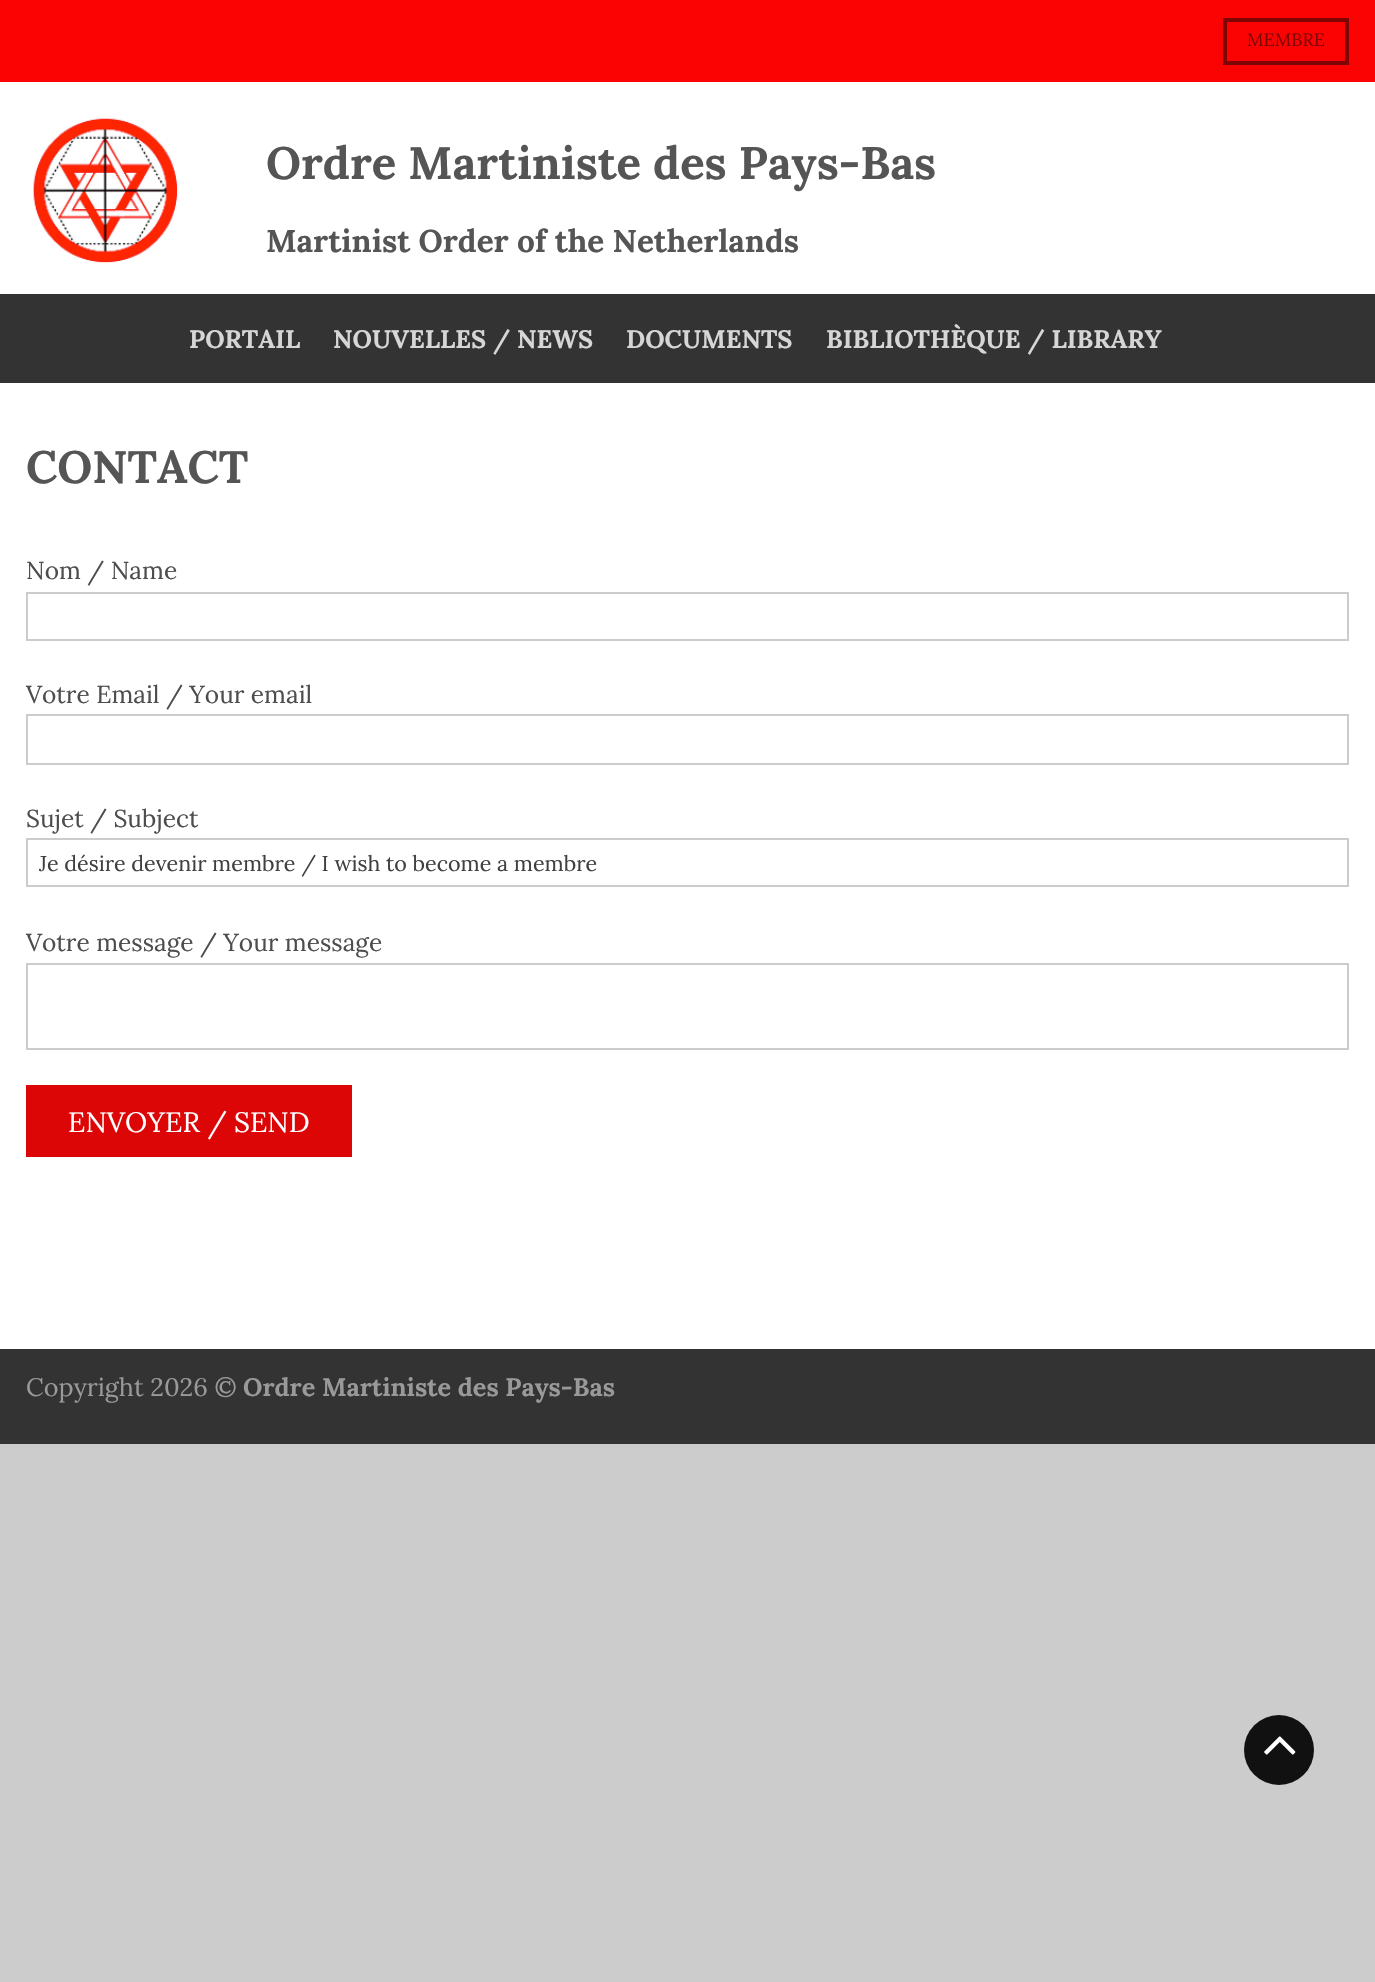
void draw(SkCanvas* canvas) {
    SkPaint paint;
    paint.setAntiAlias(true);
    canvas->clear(0xFFCCCCCC);
    paint.setColor(0xFFFFFFFF);
    canvas->drawRect(SkRect::MakeXYWH(0, 82, 1375, 1267), paint);
    paint.setColor(0xFFFB0303);
    canvas->drawRect(SkRect::MakeXYWH(0, 0, 1375, 82), paint);
    paint.setStyle(SkPaint::kStroke_Style);
    paint.setStrokeWidth(4);
    paint.setColor(0xFF7F0505);
    canvas->drawRect(SkRect::MakeXYWH(1225, 20, 122, 43), paint);
    SkFont font1(fontMgr->matchFamilyStyle("Lora", SkFontStyle::Normal()), 18);
    font1.setSubpixel(true);
    paint.setStyle(SkPaint::kFill_Style);
    canvas->drawString("MEMBRE", 1247, 46, font1, paint);
    canvas->drawImageRect(SkImages::DeferredFromEncodedData(SkData::MakeFromFileName("img1.png")), SkRect::MakeXYWH(33, 118, 145, 145), SkSamplingOptions());
    SkFont font2(fontMgr->matchFamilyStyle("Lora", SkFontStyle::Bold()), 45.5f);
    font2.setSubpixel(true);
    paint.setColor(0xFF555555);
    canvas->drawString("Ordre Martiniste des Pays-Bas", 266, 179, font2, paint);
    SkFont font3(fontMgr->matchFamilyStyle("Lora", SkFontStyle::Bold()), 31.5f);
    font3.setSubpixel(true);
    canvas->drawString("Martinist Order of the Netherlands", 266, 252, font3, paint);
    paint.setColor(0xFF333333);
    canvas->drawRect(SkRect::MakeXYWH(0, 294, 1375, 89), paint);
    SkFont font4(fontMgr->matchFamilyStyle("Lora", SkFontStyle::Bold()), 25.25f);
    font4.setSubpixel(true);
    paint.setColor(0xFFD6D6D6);
    canvas->drawString("PORTAIL", 189, 348, font4, paint);
    canvas->drawString("NOUVELLES / NEWS", 333, 348, font4, paint);
    canvas->drawString("DOCUMENTS", 626, 348, font4, paint);
    canvas->drawString("BIBLIOTHÈQUE / LIBRARY", 826, 348, font4, paint);
    paint.setColor(0xFF555555);
    canvas->drawString("CONTACT", 26, 483, font2, paint);
    SkFont font5(fontMgr->matchFamilyStyle("Lora", SkFontStyle::Normal()), 24.5f);
    font5.setSubpixel(true);
    paint.setColor(0xFF4D4D4D);
    canvas->drawString("Nom / Name", 26, 579, font5, paint);
    paint.setStyle(SkPaint::kStroke_Style);
    paint.setStrokeWidth(2);
    paint.setColor(0xFFCCCCCC);
    canvas->drawRect(SkRect::MakeXYWH(27, 593, 1321, 47), paint);
    paint.setStyle(SkPaint::kFill_Style);
    paint.setColor(0xFF4D4D4D);
    canvas->drawString("Votre Email / Your email", 26, 703, font5, paint);
    paint.setStyle(SkPaint::kStroke_Style);
    paint.setColor(0xFFCCCCCC);
    canvas->drawRect(SkRect::MakeXYWH(27, 715, 1321, 49), paint);
    paint.setStyle(SkPaint::kFill_Style);
    paint.setColor(0xFF4D4D4D);
    canvas->drawString("Sujet / Subject", 26, 827, font5, paint);
    paint.setStyle(SkPaint::kStroke_Style);
    paint.setColor(0xFFCCCCCC);
    canvas->drawRect(SkRect::MakeXYWH(27, 839, 1321, 47), paint);
    SkFont font6(fontMgr->matchFamilyStyle("Lora", SkFontStyle::Normal()), 21.45f);
    font6.setSubpixel(true);
    paint.setStyle(SkPaint::kFill_Style);
    paint.setColor(0xFF404040);
    canvas->drawString("Je désire devenir membre / I wish to become a membre", 39, 871, font6, paint);
    paint.setColor(0xFF4D4D4D);
    canvas->drawString("Votre message / Your message", 26, 951, font5, paint);
    paint.setStyle(SkPaint::kStroke_Style);
    paint.setColor(0xFFCCCCCC);
    canvas->drawRect(SkRect::MakeXYWH(27, 964, 1321, 85), paint);
    paint.setStyle(SkPaint::kFill_Style);
    paint.setColor(0xFFDD0606);
    canvas->drawRect(SkRect::MakeXYWH(26, 1085, 326, 72), paint);
    SkFont font7(fontMgr->matchFamilyStyle("Lora", SkFontStyle::Normal()), 28);
    font7.setSubpixel(true);
    paint.setColor(0xFFFFFFFF);
    canvas->drawString("ENVOYER / SEND", 68, 1132, font7, paint);
    paint.setColor(0xFF333333);
    canvas->drawRect(SkRect::MakeXYWH(0, 1349, 1375, 95), paint);
    SkFont font8(fontMgr->matchFamilyStyle("Lora", SkFontStyle::Normal()), 25.25f);
    font8.setSubpixel(true);
    paint.setColor(0xFF999999);
    canvas->drawString("Copyright 2026 ©", 26, 1396, font8, paint);
    canvas->drawString("Ordre Martiniste des Pays-Bas", 243, 1396, font4, paint);
    paint.setColor(0xFF111111);
    canvas->drawCircle(1279, 1750, 35, paint);
    canvas->drawImageRect(SkImages::DeferredFromEncodedData(SkData::MakeFromFileName("img2.png")), SkRect::MakeXYWH(1264, 1736, 32, 19), SkSamplingOptions());
}
